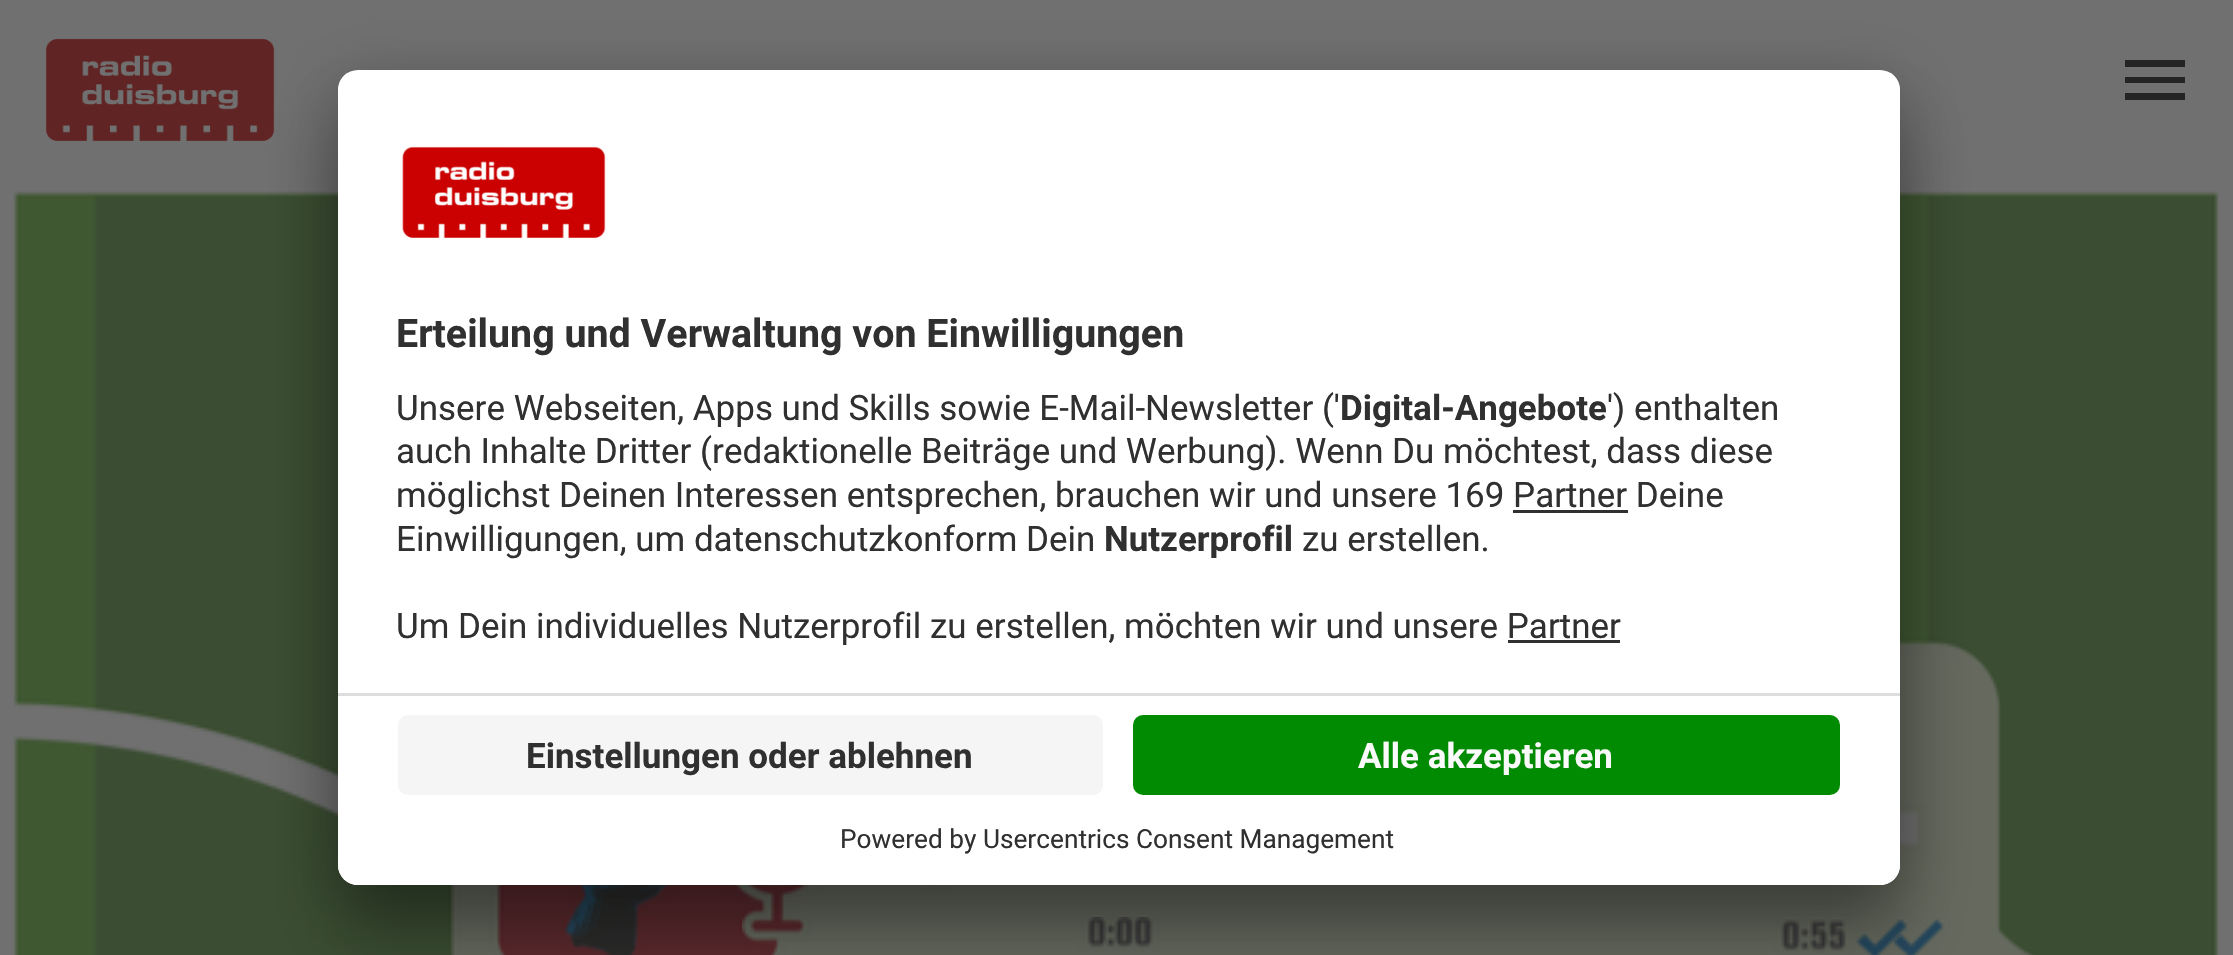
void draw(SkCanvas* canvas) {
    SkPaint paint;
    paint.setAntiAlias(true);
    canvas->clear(0xFF707070);
    canvas->drawImageRect(SkImages::DeferredFromEncodedData(SkData::MakeFromFileName("img1.png")), SkRect::MakeXYWH(45, 38, 230, 103), SkSamplingOptions());
    paint.setColor(0xFF242424);
    canvas->drawPath(SkPathBuilder().moveTo(2125, 100).lineTo(2125, 93).lineTo(2185, 93).lineTo(2185, 100).close().moveTo(2125, 83).lineTo(2125, 77).lineTo(2185, 77).lineTo(2185, 83).close().moveTo(2125, 67).lineTo(2125, 60).lineTo(2185, 60).lineTo(2185, 67).close().detach(), paint);
    canvas->drawImageRect(SkImages::DeferredFromEncodedData(SkData::MakeFromFileName("img2.png")), SkRect::MakeXYWH(13, 191, 2206, 764), SkSamplingOptions());
    paint.setColor(0x4D000000);
    paint.setMaskFilter(SkMaskFilter::MakeBlur(kNormal_SkBlurStyle, 35));
    canvas->drawRoundRect(SkRect::MakeXYWH(338, 120, 1562, 815), 20, 20, paint);
    paint.setMaskFilter(nullptr);
    paint.setColor(0x38000000);
    paint.setMaskFilter(SkMaskFilter::MakeBlur(kNormal_SkBlurStyle, 32.5f));
    canvas->drawRoundRect(SkRect::MakeXYWH(338, 83, 1562, 815), 20, 20, paint);
    paint.setMaskFilter(nullptr);
    paint.setColor(0xFFFFFFFF);
    canvas->drawRoundRect(SkRect::MakeXYWH(338, 70, 1562, 815), 20, 20, paint);
    canvas->save();
    canvas->clipPath(SkPathBuilder().moveTo(358, 70).lineTo(1880, 70).cubicTo(1891, 70, 1900, 79, 1900, 90).lineTo(1900, 865).cubicTo(1900, 876, 1891, 885, 1880, 885).lineTo(358, 885).cubicTo(347, 885, 338, 876, 338, 865).lineTo(338, 90).cubicTo(338, 79, 347, 70, 358, 70).close().detach(), true);
    canvas->clipPath(SkPathBuilder().moveTo(358, 70).lineTo(1880, 70).cubicTo(1891, 70, 1900, 79, 1900, 90).lineTo(1900, 693).lineTo(338, 693).lineTo(338, 90).cubicTo(338, 79, 347, 70, 358, 70).close().detach(), true);
    canvas->drawRect(SkRect::MakeXYWH(338, 73, 1562, 620), paint);
    canvas->restore();
    canvas->drawImageRect(SkImages::DeferredFromEncodedData(SkData::MakeFromFileName("img3.png")), SkRect::MakeXYWH(402, 146, 204, 92), SkSamplingOptions());
    SkFont font1(fontMgr->matchFamilyStyle("Roboto", SkFontStyle::Bold()), 39.4f);
    font1.setSubpixel(true);
    paint.setColor(0xFF303030);
    canvas->drawString("Erteilung und Verwaltung von Einwilligungen", 396, 347, font1, paint);
    SkFont font2(fontMgr->matchFamilyStyle("Roboto", SkFontStyle::Normal()), 35);
    font2.setSubpixel(true);
    canvas->drawString("Unsere Webseiten, Apps und Skills sowie E-Mail-Newsletter ('", 396, 420, font2, paint);
    SkFont font3(fontMgr->matchFamilyStyle("Roboto", SkFontStyle::Bold()), 35);
    font3.setSubpixel(true);
    canvas->drawString("Digital-Angebote", 1340, 420, font3, paint);
    canvas->drawString("') enthalten", 1607, 420, font2, paint);
    canvas->drawString("auch Inhalte Dritter (redaktionelle Beiträge und Werbung). Wenn Du möchtest, dass diese", 396, 463, font2, paint);
    canvas->drawString("möglichst Deinen Interessen entsprechen, brauchen wir und unsere 169 Partner Deine", 396, 507, font2, paint);
    canvas->drawRect(SkRect::MakeXYWH(1513, 510, 115, 3), paint);
    canvas->drawString("Einwilligungen, um datenschutzkonform Dein", 396, 551, font2, paint);
    canvas->drawString("Nutzerprofil", 1104, 551, font3, paint);
    canvas->drawString("zu erstellen.", 1302, 551, font2, paint);
    canvas->drawString("Um Dein individuelles Nutzerprofil zu erstellen, möchten wir und unsere Partner", 396, 638, font2, paint);
    canvas->drawRect(SkRect::MakeXYWH(1508, 640, 112, 3), paint);
    paint.setColor(0xFFFFFFFF);
    canvas->drawPath(SkPathBuilder().moveTo(338, 693).lineTo(1900, 693).lineTo(1900, 865).cubicTo(1900, 876, 1891, 885, 1880, 885).lineTo(358, 885).cubicTo(347, 885, 338, 876, 338, 865).close().detach(), paint);
    paint.setColor(0xFFDDDDDD);
    canvas->drawRect(SkRect::MakeXYWH(338, 693, 1562, 3), paint);
    paint.setColor(0xFFF5F5F5);
    canvas->drawRoundRect(SkRect::MakeXYWH(398, 715, 705, 80), 10, 10, paint);
    paint.setColor(0xFF303030);
    canvas->drawString("Einstellungen oder ablehnen", 526, 768, font3, paint);
    paint.setColor(0xFF008B02);
    canvas->drawRoundRect(SkRect::MakeXYWH(1133, 715, 707, 80), 10, 10, paint);
    paint.setColor(0xFFFAFAFA);
    canvas->drawString("Alle akzeptieren", 1358, 768, font3, paint);
    SkFont font4(fontMgr->matchFamilyStyle("Roboto", SkFontStyle::Normal()), 26.25f);
    font4.setSubpixel(true);
    paint.setColor(0xFF303030);
    canvas->drawString("Powered by Usercentrics Consent Management", 840, 848, font4, paint);
}
